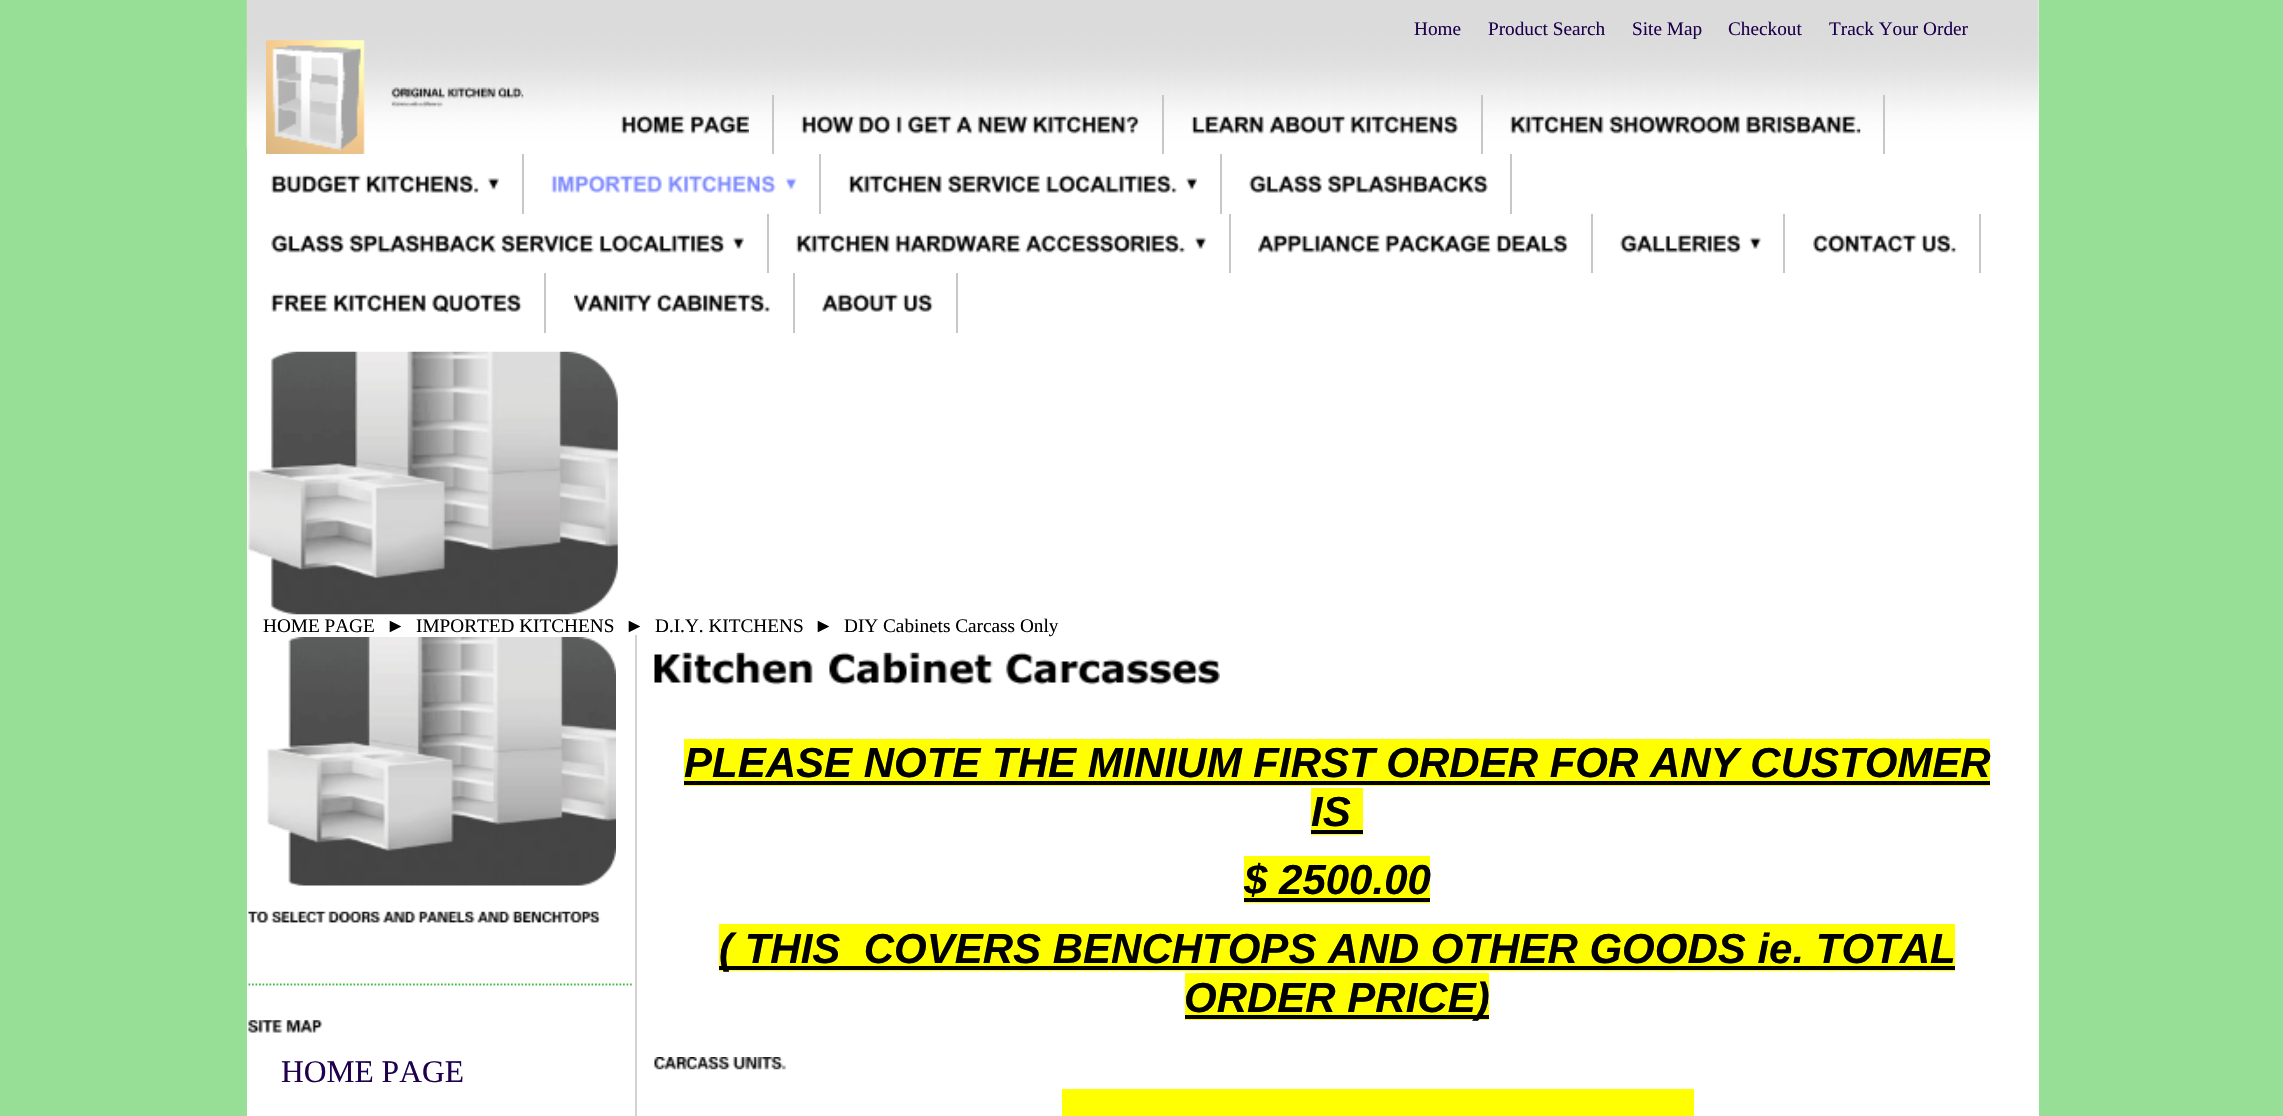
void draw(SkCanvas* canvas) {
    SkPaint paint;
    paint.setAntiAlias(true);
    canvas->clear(0xFF97DE97);
    paint.setColor(0xFFFFFFFF);
    canvas->drawRect(SkRect::MakeXYWH(247, 0, 1792, 1116), paint);
    canvas->drawImageRect(SkImages::DeferredFromEncodedData(SkData::MakeFromFileName("img1.png")), SkRect::MakeXYWH(246, 0, 1793, 149), SkSamplingOptions());
    SkFont font1(fontMgr->matchFamilyStyle("Liberation Serif", SkFontStyle::Normal()), 19.25f);
    font1.setSubpixel(true);
    paint.setColor(0xFF1E004C);
    canvas->drawString("Home", 1414, 35, font1, paint);
    canvas->drawString("Product Search", 1488, 35, font1, paint);
    canvas->drawString("Site Map", 1632, 35, font1, paint);
    canvas->drawString("Checkout", 1728, 35, font1, paint);
    canvas->drawString("Track Your Order", 1829, 35, font1, paint);
    canvas->drawImageRect(SkImages::DeferredFromEncodedData(SkData::MakeFromFileName("img2.png")), SkRect::MakeXYWH(266, 40, 258, 114), SkSamplingOptions());
    canvas->drawImageRect(SkImages::DeferredFromEncodedData(SkData::MakeFromFileName("img3.png")), SkRect::MakeXYWH(621, 115, 128, 19), SkSamplingOptions());
    paint.setColor(0xFFC7C7C7);
    canvas->drawRect(SkRect::MakeXYWH(772, 95, 2, 59), paint);
    canvas->drawImageRect(SkImages::DeferredFromEncodedData(SkData::MakeFromFileName("img4.png")), SkRect::MakeXYWH(801, 115, 339, 19), SkSamplingOptions());
    canvas->drawRect(SkRect::MakeXYWH(1162, 95, 2, 59), paint);
    canvas->drawImageRect(SkImages::DeferredFromEncodedData(SkData::MakeFromFileName("img5.png")), SkRect::MakeXYWH(1191, 115, 267, 19), SkSamplingOptions());
    canvas->drawRect(SkRect::MakeXYWH(1481, 95, 2, 59), paint);
    canvas->drawImageRect(SkImages::DeferredFromEncodedData(SkData::MakeFromFileName("img6.png")), SkRect::MakeXYWH(1510, 115, 351, 19), SkSamplingOptions());
    canvas->drawRect(SkRect::MakeXYWH(1883, 95, 2, 59), paint);
    canvas->drawImageRect(SkImages::DeferredFromEncodedData(SkData::MakeFromFileName("img7.png")), SkRect::MakeXYWH(271, 174, 228, 19), SkSamplingOptions());
    canvas->drawRect(SkRect::MakeXYWH(522, 154, 2, 60), paint);
    canvas->drawImageRect(SkImages::DeferredFromEncodedData(SkData::MakeFromFileName("img8.png")), SkRect::MakeXYWH(551, 174, 246, 19), SkSamplingOptions());
    canvas->drawRect(SkRect::MakeXYWH(819, 154, 2, 60), paint);
    canvas->drawImageRect(SkImages::DeferredFromEncodedData(SkData::MakeFromFileName("img9.png")), SkRect::MakeXYWH(848, 174, 349, 19), SkSamplingOptions());
    canvas->drawRect(SkRect::MakeXYWH(1220, 154, 2, 60), paint);
    canvas->drawImageRect(SkImages::DeferredFromEncodedData(SkData::MakeFromFileName("img10.png")), SkRect::MakeXYWH(1249, 174, 239, 19), SkSamplingOptions());
    canvas->drawRect(SkRect::MakeXYWH(1510, 154, 2, 60), paint);
    canvas->drawImageRect(SkImages::DeferredFromEncodedData(SkData::MakeFromFileName("img11.png")), SkRect::MakeXYWH(271, 234, 473, 19), SkSamplingOptions());
    canvas->drawRect(SkRect::MakeXYWH(767, 214, 2, 59), paint);
    canvas->drawImageRect(SkImages::DeferredFromEncodedData(SkData::MakeFromFileName("img12.png")), SkRect::MakeXYWH(796, 234, 410, 19), SkSamplingOptions());
    canvas->drawRect(SkRect::MakeXYWH(1229, 214, 2, 59), paint);
    canvas->drawImageRect(SkImages::DeferredFromEncodedData(SkData::MakeFromFileName("img13.png")), SkRect::MakeXYWH(1258, 234, 310, 19), SkSamplingOptions());
    canvas->drawRect(SkRect::MakeXYWH(1591, 214, 2, 59), paint);
    canvas->drawImageRect(SkImages::DeferredFromEncodedData(SkData::MakeFromFileName("img14.png")), SkRect::MakeXYWH(1620, 234, 141, 19), SkSamplingOptions());
    canvas->drawRect(SkRect::MakeXYWH(1783, 214, 2, 59), paint);
    canvas->drawImageRect(SkImages::DeferredFromEncodedData(SkData::MakeFromFileName("img15.png")), SkRect::MakeXYWH(1813, 234, 144, 19), SkSamplingOptions());
    canvas->drawRect(SkRect::MakeXYWH(1979, 214, 2, 59), paint);
    canvas->drawImageRect(SkImages::DeferredFromEncodedData(SkData::MakeFromFileName("img16.png")), SkRect::MakeXYWH(271, 293, 251, 21), SkSamplingOptions());
    canvas->drawRect(SkRect::MakeXYWH(544, 273, 2, 60), paint);
    canvas->drawImageRect(SkImages::DeferredFromEncodedData(SkData::MakeFromFileName("img17.png")), SkRect::MakeXYWH(574, 293, 196, 19), SkSamplingOptions());
    canvas->drawRect(SkRect::MakeXYWH(793, 273, 2, 60), paint);
    canvas->drawImageRect(SkImages::DeferredFromEncodedData(SkData::MakeFromFileName("img18.png")), SkRect::MakeXYWH(822, 293, 111, 19), SkSamplingOptions());
    canvas->drawRect(SkRect::MakeXYWH(956, 273, 2, 60), paint);
    canvas->drawImageRect(SkImages::DeferredFromEncodedData(SkData::MakeFromFileName("img19.png")), SkRect::MakeXYWH(246, 351, 372, 264), SkSamplingOptions());
    paint.setColor(0xFF000000);
    canvas->drawString("HOME PAGE", 263, 632, font1, paint);
    SkFont font2(fontMgr->matchFamilyStyle("Liberation Sans", SkFontStyle::Normal()), 19.25f);
    font2.setSubpixel(true);
    canvas->drawString("►", 386, 632, font2, paint);
    canvas->drawString("IMPORTED KITCHENS", 416, 632, font1, paint);
    canvas->drawString("►", 625, 632, font2, paint);
    canvas->drawString("D.I.Y. KITCHENS", 655, 632, font1, paint);
    canvas->drawString("►", 814, 632, font2, paint);
    canvas->drawString("DIY Cabinets Carcass Only", 844, 632, font1, paint);
    paint.setColor(0xFFD3D3D3);
    canvas->drawRect(SkRect::MakeXYWH(635, 635, 2, 481), paint);
    canvas->drawImageRect(SkImages::DeferredFromEncodedData(SkData::MakeFromFileName("img20.png")), SkRect::MakeXYWH(654, 652, 566, 33), SkSamplingOptions());
    paint.setColor(0xFFFFFF00);
    canvas->drawRect(SkRect::MakeXYWH(684, 739, 1306, 47), paint);
    SkFont font3(fontMgr->matchFamilyStyle("Liberation Sans", SkFontStyle::BoldItalic()), 42);
    font3.setSubpixel(true);
    paint.setColor(0xFF000000);
    canvas->drawString("PLEASE NOTE THE MINIUM FIRST ORDER FOR ANY CUSTOMER", 684, 777, font3, paint);
    canvas->drawRect(SkRect::MakeXYWH(684, 781, 1306, 4), paint);
    paint.setColor(0xFFFFFF00);
    canvas->drawRect(SkRect::MakeXYWH(1311, 788, 52, 47), paint);
    paint.setColor(0xFF000000);
    canvas->drawString("IS", 1311, 826, font3, paint);
    canvas->drawRect(SkRect::MakeXYWH(1311, 830, 52, 4), paint);
    paint.setColor(0xFFFFFF00);
    canvas->drawRect(SkRect::MakeXYWH(1244, 856, 186, 47), paint);
    paint.setColor(0xFF000000);
    canvas->drawString("$ 2500.00", 1244, 894, font3, paint);
    canvas->drawRect(SkRect::MakeXYWH(1244, 898, 186, 4), paint);
    paint.setColor(0xFFFFFF00);
    canvas->drawRect(SkRect::MakeXYWH(719, 924, 1236, 47), paint);
    paint.setColor(0xFF000000);
    canvas->drawRect(SkRect::MakeXYWH(719, 966, 1236, 4), paint);
    canvas->drawString("( THIS  COVERS BENCHTOPS AND OTHER GOODS ie. TOTAL", 719, 963, font3, paint);
    paint.setColor(0xFFFFFF00);
    canvas->drawRect(SkRect::MakeXYWH(1185, 973, 304, 47), paint);
    paint.setColor(0xFF000000);
    canvas->drawRect(SkRect::MakeXYWH(1185, 1015, 304, 4), paint);
    canvas->drawString("ORDER PRICE)", 1184, 1012, font3, paint);
    canvas->drawImageRect(SkImages::DeferredFromEncodedData(SkData::MakeFromFileName("img21.png")), SkRect::MakeXYWH(654, 1057, 132, 13), SkSamplingOptions());
    paint.setColor(0xFFFFFF00);
    canvas->drawRect(SkRect::MakeXYWH(1062, 1089, 632, 27), paint);
    canvas->drawImageRect(SkImages::DeferredFromEncodedData(SkData::MakeFromFileName("img22.png")), SkRect::MakeXYWH(267, 637, 349, 249), SkSamplingOptions());
    paint.setStyle(SkPaint::kStroke_Style);
    paint.setStrokeWidth(1.8f);
    paint.setColor(0xFF45BD45);
    paint.setPathEffect(SkDashPathEffect::Make({{1.75f, 1.75f}}, 0));
    canvas->drawPath(SkPathBuilder().moveTo(248.5f, 984.5f).lineTo(633.5f, 984.5f).detach(), paint);
    paint.setPathEffect(nullptr);
    canvas->drawImageRect(SkImages::DeferredFromEncodedData(SkData::MakeFromFileName("img23.png")), SkRect::MakeXYWH(248, 911, 353, 12), SkSamplingOptions());
    canvas->drawImageRect(SkImages::DeferredFromEncodedData(SkData::MakeFromFileName("img24.png")), SkRect::MakeXYWH(248, 1020, 74, 13), SkSamplingOptions());
    SkFont font4(fontMgr->matchFamilyStyle("Liberation Serif", SkFontStyle::Normal()), 31.5f);
    font4.setSubpixel(true);
    paint.setStyle(SkPaint::kFill_Style);
    paint.setColor(0xFF1E004C);
    canvas->drawString("HOME PAGE", 281, 1082, font4, paint);
}
